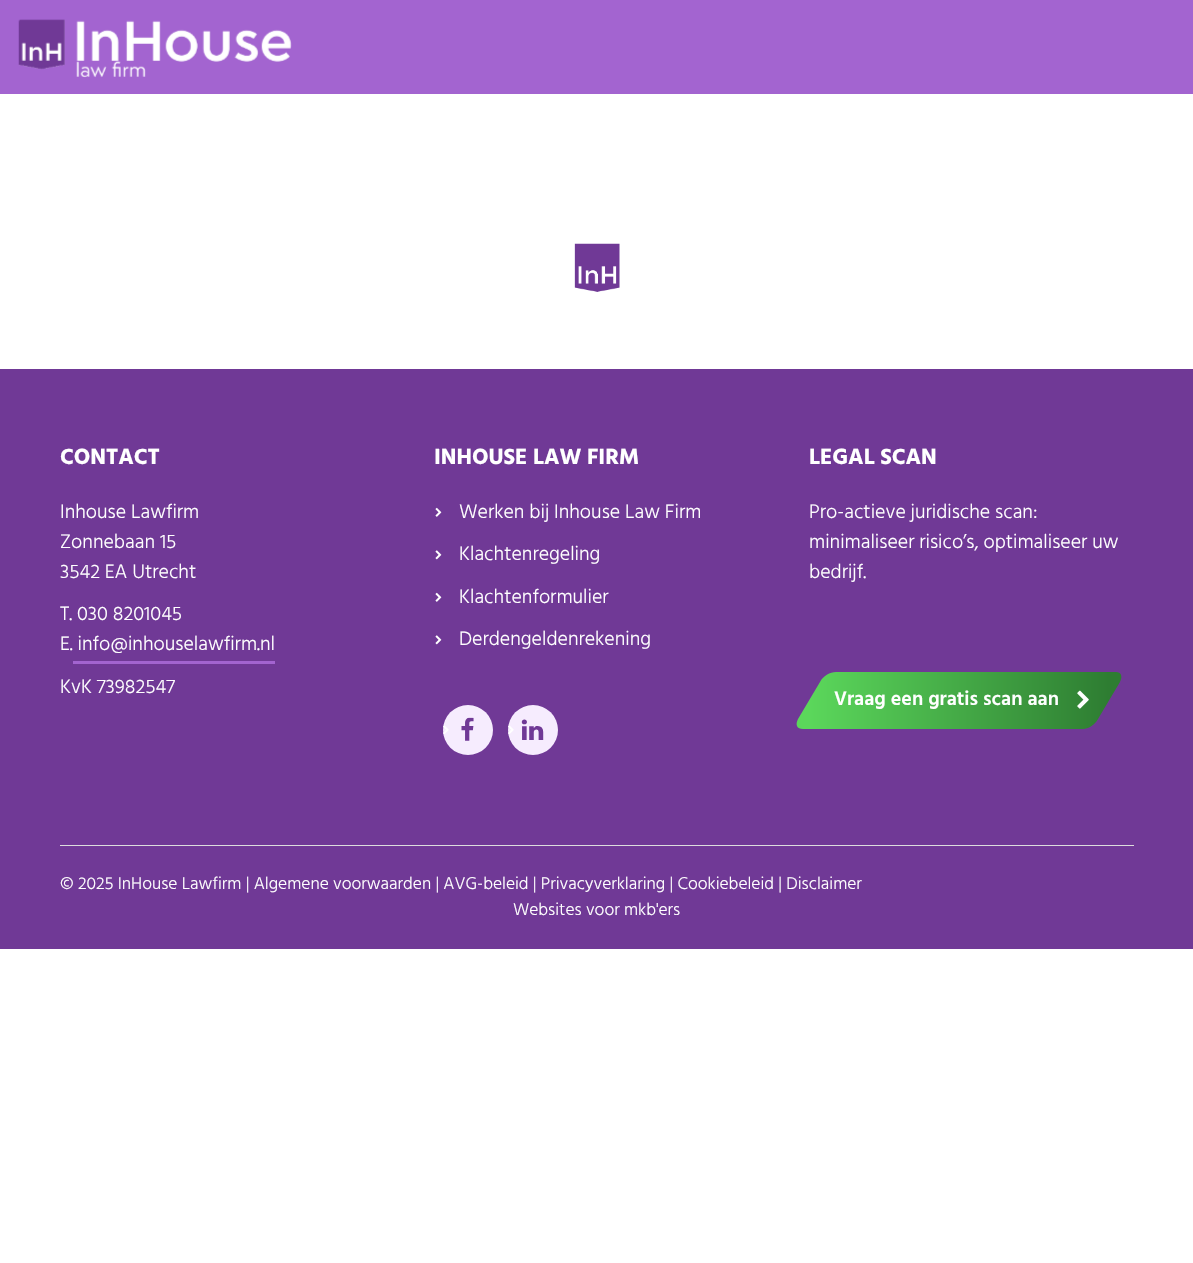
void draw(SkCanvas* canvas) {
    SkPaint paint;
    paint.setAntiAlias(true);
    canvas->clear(0xFFFFFFFF);
    paint.setColor(0xFFA364D0);
    canvas->drawRect(SkRect::MakeXYWH(0, 0, 1193, 94), paint);
    canvas->drawImageRect(SkImages::DeferredFromEncodedData(SkData::MakeFromFileName("img1.png")), SkRect::MakeXYWH(18, 19, 274, 59), SkSamplingOptions());
    canvas->drawImageRect(SkImages::DeferredFromEncodedData(SkData::MakeFromFileName("img2.png")), SkRect::MakeXYWH(574, 243, 46, 49), SkSamplingOptions());
    paint.setColor(0xFF703996);
    canvas->drawRect(SkRect::MakeXYWH(0, 369, 1193, 580), paint);
    SkFont font1(fontMgr->matchFamilyStyle("Hind", SkFontStyle::Bold()), 22.5f);
    font1.setSubpixel(true);
    paint.setColor(0xFFFFFFFF);
    canvas->drawString("CONTACT", 60, 464, font1, paint);
    SkFont font2(fontMgr->matchFamilyStyle("Hind", SkFontStyle(300, SkFontStyle::kNormal_Width, SkFontStyle::kUpright_Slant)), 20);
    font2.setSubpixel(true);
    canvas->drawString("Inhouse Lawfirm", 60, 518, font2, paint);
    canvas->drawString("Zonnebaan 15", 60, 548, font2, paint);
    canvas->drawString("3542 EA Utrecht", 60, 578, font2, paint);
    canvas->drawString("T. 030 8201045", 60, 620, font2, paint);
    canvas->drawString("E. info@inhouselawfirm.nl", 60, 650, font2, paint);
    paint.setColor(0xFFA364D0);
    canvas->drawRect(SkRect::MakeXYWH(73, 661, 202, 3), paint);
    paint.setColor(0xFFFFFFFF);
    canvas->drawString("KvK 73982547", 60, 693, font2, paint);
    canvas->drawString("INHOUSE LAW FIRM", 434, 464, font1, paint);
    canvas->drawImageRect(SkImages::DeferredFromEncodedData(SkData::MakeFromFileName("img3.png")), SkRect::MakeXYWH(435, 507, 7, 10), SkSamplingOptions());
    canvas->drawString("Werken bij Inhouse Law Firm", 459, 518, font2, paint);
    canvas->drawImageRect(SkImages::DeferredFromEncodedData(SkData::MakeFromFileName("img4.png")), SkRect::MakeXYWH(435, 550, 7, 10), SkSamplingOptions());
    canvas->drawString("Klachtenregeling", 459, 560, font2, paint);
    canvas->drawImageRect(SkImages::DeferredFromEncodedData(SkData::MakeFromFileName("img3.png")), SkRect::MakeXYWH(435, 592, 7, 10), SkSamplingOptions());
    canvas->drawString("Klachtenformulier", 459, 603, font2, paint);
    canvas->drawImageRect(SkImages::DeferredFromEncodedData(SkData::MakeFromFileName("img4.png")), SkRect::MakeXYWH(435, 635, 7, 10), SkSamplingOptions());
    canvas->drawString("Derdengeldenrekening", 459, 645, font2, paint);
    paint.setColor(0xFFF6ECFE);
    canvas->drawCircle(468, 730, 25, paint);
    canvas->drawImageRect(SkImages::DeferredFromEncodedData(SkData::MakeFromFileName("img5.png")), SkRect::MakeXYWH(461, 717, 13, 24), SkSamplingOptions());
    canvas->drawImageRect(SkImages::DeferredFromEncodedData(SkData::MakeFromFileName("img6.png")), SkRect::MakeXYWH(443, 725, 6, 9), SkSamplingOptions());
    canvas->drawCircle(533, 730, 25, paint);
    canvas->drawImageRect(SkImages::DeferredFromEncodedData(SkData::MakeFromFileName("img7.png")), SkRect::MakeXYWH(521, 719, 23, 21), SkSamplingOptions());
    canvas->drawImageRect(SkImages::DeferredFromEncodedData(SkData::MakeFromFileName("img6.png")), SkRect::MakeXYWH(508, 725, 6, 9), SkSamplingOptions());
    paint.setColor(0xFFFFFFFF);
    canvas->drawString("LEGAL SCAN", 809, 464, font1, paint);
    canvas->drawString("Pro-actieve juridische scan:", 809, 518, font2, paint);
    canvas->drawString("minimaliseer risico’s, optimaliseer uw", 809, 548, font2, paint);
    canvas->drawString("bedrijf.", 809, 578, font2, paint);
    {
        const SkColor colors[] = {0xFF5BD75B, 0xFF2E7D32};
        const float stops[] = {0, 1};
        const SkPoint ends[] = {{809, 700}, {1109, 700}};
        paint.setShader(SkGradientShader::MakeLinear(ends, colors, stops, 2, SkTileMode::kClamp));
        paint.setAlpha(255);
    }
    canvas->drawPath(SkPathBuilder().moveTo(836, 672).lineTo(1116, 672).cubicTo(1121, 672, 1123, 676, 1120, 682).lineTo(1098, 719).cubicTo(1095, 725, 1088, 729, 1083, 729).lineTo(803, 729).cubicTo(797, 729, 795, 725, 798, 719).lineTo(820, 682).cubicTo(823, 676, 830, 672, 836, 672).close().detach(), paint);
    SkFont font3(fontMgr->matchFamilyStyle("Hind", SkFontStyle(600, SkFontStyle::kNormal_Width, SkFontStyle::kUpright_Slant)), 20);
    font3.setSubpixel(true);
    paint.setShader(nullptr);
    paint.setColor(0xFFFFFFFF);
    canvas->drawString("Vraag een gratis scan aan", 834, 705, font3, paint);
    canvas->drawImageRect(SkImages::DeferredFromEncodedData(SkData::MakeFromFileName("img8.png")), SkRect::MakeXYWH(1077, 690, 12, 19), SkSamplingOptions());
    paint.setColor(0xFFDDDDDD);
    canvas->drawRect(SkRect::MakeXYWH(60, 845, 1074, 1), paint);
    SkFont font4(fontMgr->matchFamilyStyle("Hind", SkFontStyle(300, SkFontStyle::kNormal_Width, SkFontStyle::kUpright_Slant)), 17.5f);
    font4.setSubpixel(true);
    paint.setColor(0xFFFFFFFF);
    canvas->drawString("© 2025 InHouse Lawfirm | Algemene voorwaarden | AVG-beleid | Privacyverklaring | Cookiebeleid | Disclaimer", 60, 889, font4, paint);
    canvas->drawString("Websites voor mkb'ers", 513, 915, font4, paint);
}
